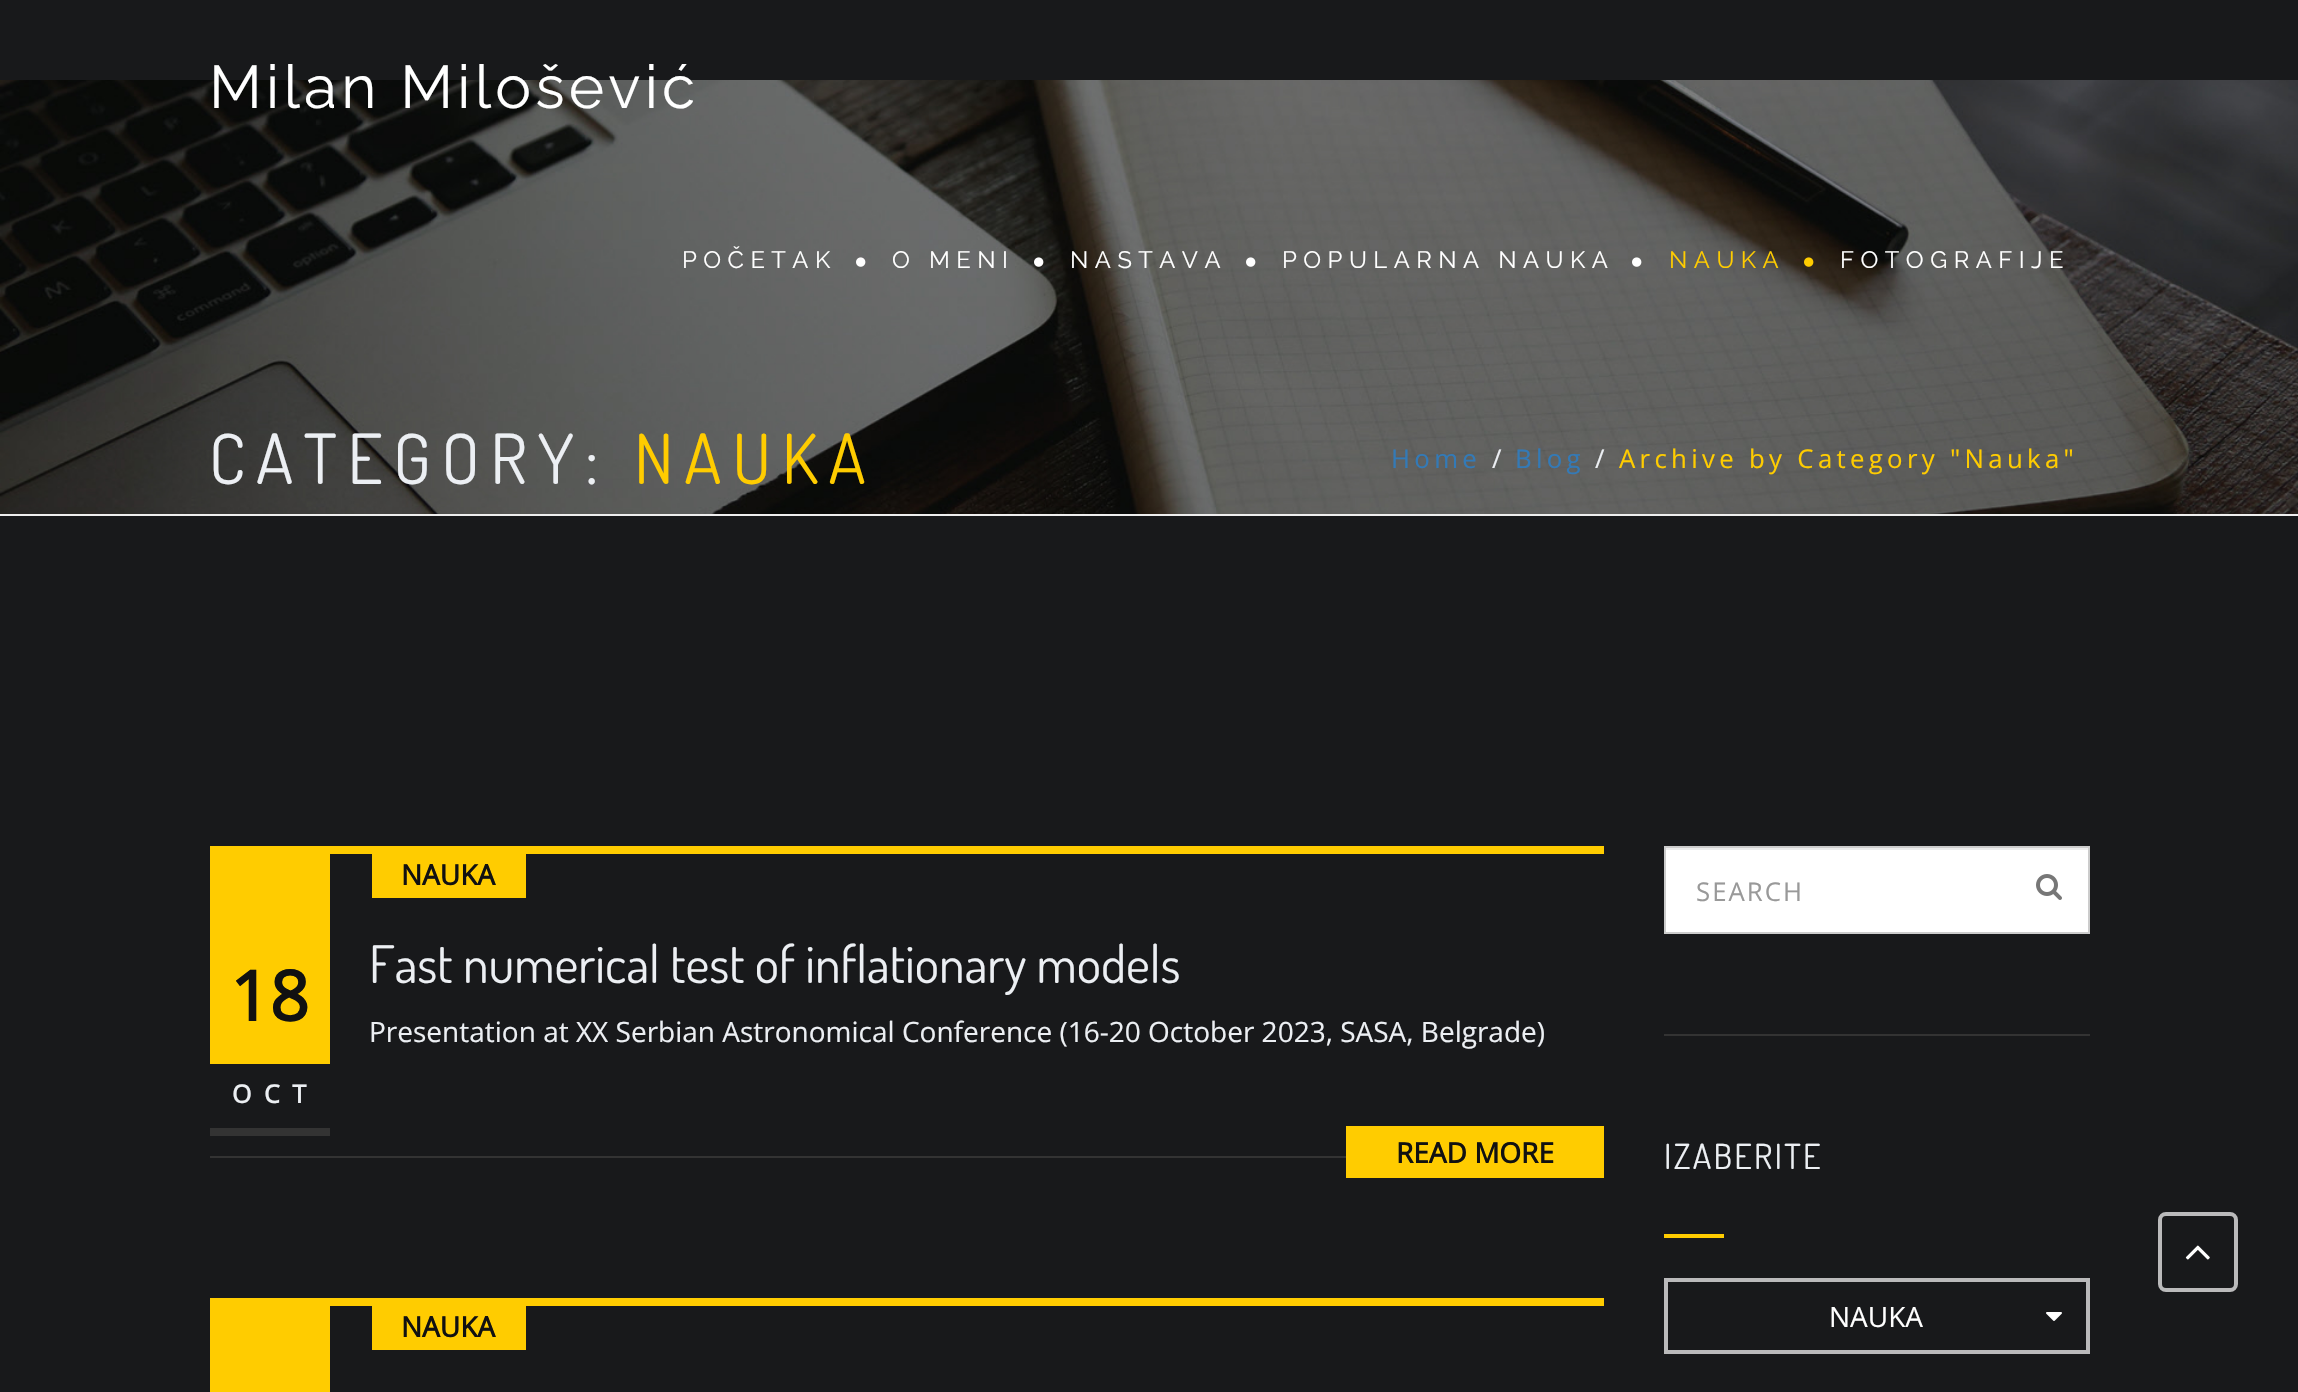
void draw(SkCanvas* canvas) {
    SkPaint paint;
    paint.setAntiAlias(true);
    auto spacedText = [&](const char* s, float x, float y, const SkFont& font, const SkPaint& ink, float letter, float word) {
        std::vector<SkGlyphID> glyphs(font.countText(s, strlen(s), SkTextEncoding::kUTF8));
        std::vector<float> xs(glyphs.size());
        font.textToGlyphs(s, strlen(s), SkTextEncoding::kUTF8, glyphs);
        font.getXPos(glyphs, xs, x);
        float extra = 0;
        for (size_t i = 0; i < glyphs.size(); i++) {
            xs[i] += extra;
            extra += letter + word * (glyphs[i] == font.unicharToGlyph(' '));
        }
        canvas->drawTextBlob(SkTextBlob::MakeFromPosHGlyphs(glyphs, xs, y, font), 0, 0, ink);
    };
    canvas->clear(0xFF18191B);
    canvas->drawImageRect(SkImages::DeferredFromEncodedData(SkData::MakeFromFileName("img6.png")), SkRect::MakeXYWH(0, 80, 2298, 434), SkSamplingOptions());
    SkFont font1(fontMgr->matchFamilyStyle("Raleway", SkFontStyle(100, SkFontStyle::kNormal_Width, SkFontStyle::kUpright_Slant)), 60.25f);
    font1.setSubpixel(true);
    paint.setColor(0xFFFFFFFF);
    spacedText("Milan Milošević", 209, 108, font1, paint, 4.25f, 0);
    SkFont font2(fontMgr->matchFamilyStyle("Raleway", SkFontStyle(100, SkFontStyle::kNormal_Width, SkFontStyle::kUpright_Slant)), 23.75f);
    font2.setSubpixel(true);
    spacedText("POČETAK", 682, 268, font2, paint, 6.5f, 0);
    canvas->drawImageRect(SkImages::DeferredFromEncodedData(SkData::MakeFromFileName("img1.png")), SkRect::MakeXYWH(856, 257, 10, 10), SkSamplingOptions());
    spacedText("O MENI", 892, 268, font2, paint, 6.5f, 0);
    canvas->drawImageRect(SkImages::DeferredFromEncodedData(SkData::MakeFromFileName("img2.png")), SkRect::MakeXYWH(1034, 257, 10, 10), SkSamplingOptions());
    spacedText("NASTAVA", 1070, 268, font2, paint, 6.5f, 0);
    canvas->drawImageRect(SkImages::DeferredFromEncodedData(SkData::MakeFromFileName("img3.png")), SkRect::MakeXYWH(1246, 257, 10, 10), SkSamplingOptions());
    spacedText("POPULARNA NAUKA", 1282, 268, font2, paint, 6.5f, 0);
    canvas->drawImageRect(SkImages::DeferredFromEncodedData(SkData::MakeFromFileName("img4.png")), SkRect::MakeXYWH(1632, 257, 10, 10), SkSamplingOptions());
    paint.setColor(0xFFFFCC00);
    spacedText("NAUKA", 1669, 268, font2, paint, 6.5f, 0);
    canvas->drawImageRect(SkImages::DeferredFromEncodedData(SkData::MakeFromFileName("img5.png")), SkRect::MakeXYWH(1804, 257, 10, 10), SkSamplingOptions());
    paint.setColor(0xFFFFFFFF);
    spacedText("FOTOGRAFIJE", 1840, 268, font2, paint, 6.5f, 0);
    paint.setColor(0xFFEEEEEE);
    canvas->drawRect(SkRect::MakeXYWH(0, 514, 2298, 2), paint);
    SkFont font3(fontMgr->matchFamilyStyle("Dosis", SkFontStyle::Normal()), 69);
    font3.setSubpixel(true);
    paint.setColor(0xFFECEFF3);
    spacedText("CATEGORY:", 209, 484, font3, paint, 10.75f, 0);
    paint.setColor(0xFFFFCC00);
    spacedText("NAUKA", 634, 484, font3, paint, 10.75f, 0);
    SkFont font4(fontMgr->matchFamilyStyle("Open Sans", SkFontStyle::Normal()), 25.8f);
    font4.setSubpixel(true);
    paint.setColor(0xFF337AB7);
    spacedText("Home", 1391, 468, font4, paint, 4.3f, 0);
    paint.setColor(0xFFECEFF3);
    spacedText("/", 1492, 468, font4, paint, 4.3f, 0);
    paint.setColor(0xFF337AB7);
    spacedText("Blog", 1515, 468, font4, paint, 4.3f, 0);
    paint.setColor(0xFFECEFF3);
    spacedText("/", 1595, 468, font4, paint, 4.3f, 0);
    paint.setColor(0xFFFFCC00);
    spacedText("Archive by Category \"Nauka\"", 1619, 468, font4, paint, 4.3f, 0);
    paint.setColor(0xFF333333);
    canvas->drawRect(SkRect::MakeXYWH(210, 1156, 1136, 2), paint);
    paint.setColor(0xFFFFCC00);
    canvas->drawRect(SkRect::MakeXYWH(210, 846, 1394, 8), paint);
    canvas->drawRect(SkRect::MakeXYWH(372, 854, 154, 44), paint);
    SkFont font5(fontMgr->matchFamilyStyle("Open Sans", SkFontStyle::Bold()), 28);
    font5.setSubpixel(true);
    paint.setColor(0xFF111111);
    canvas->drawString("NAUKA", 401, 885, font5, paint);
    paint.setColor(0xFFFFCC00);
    canvas->drawRect(SkRect::MakeXYWH(210, 854, 120, 210), paint);
    SkFont font6(fontMgr->matchFamilyStyle("Open Sans", SkFontStyle::Bold()), 69);
    font6.setSubpixel(true);
    paint.setColor(0xFF111111);
    canvas->drawString("18", 230, 1021, font6, paint);
    paint.setColor(0xFF333333);
    canvas->drawRect(SkRect::MakeXYWH(210, 1128, 120, 8), paint);
    SkFont font7(fontMgr->matchFamilyStyle("Open Sans", SkFontStyle::Bold()), 25);
    font7.setSubpixel(true);
    paint.setColor(0xFFECEFF3);
    spacedText("OCT", 232, 1103, font7, paint, 12.5f, 0);
    SkFont font8(fontMgr->matchFamilyStyle("Dosis", SkFontStyle::Normal()), 51.75f);
    font8.setSubpixel(true);
    canvas->drawString("Fast numerical test of inflationary models", 369, 983, font8, paint);
    SkFont font9(fontMgr->matchFamilyStyle("Open Sans", SkFontStyle::Normal()), 28);
    font9.setSubpixel(true);
    canvas->drawString("Presentation at XX Serbian Astronomical Conference (16-20 October 2023, SASA, Belgrade)", 369, 1042, font9, paint);
    paint.setColor(0xFFFFCC00);
    canvas->drawRect(SkRect::MakeXYWH(1346, 1126, 258, 52), paint);
    paint.setColor(0xFF111111);
    canvas->drawString("READ MORE", 1396, 1163, font5, paint);
    paint.setColor(0xFFFFCC00);
    canvas->drawRect(SkRect::MakeXYWH(210, 1298, 1394, 8), paint);
    canvas->drawRect(SkRect::MakeXYWH(210, 1306, 120, 86), paint);
    canvas->drawRect(SkRect::MakeXYWH(372, 1306, 154, 44), paint);
    paint.setColor(0xFF111111);
    canvas->drawString("NAUKA", 401, 1337, font5, paint);
    paint.setColor(0xFF333333);
    canvas->drawRect(SkRect::MakeXYWH(1664, 1034, 426, 2), paint);
    paint.setColor(0xFFFFFFFF);
    canvas->drawRect(SkRect::MakeXYWH(1666, 850, 422, 82), paint);
    paint.setColor(0xFFECECEC);
    canvas->drawRect(SkRect::MakeXYWH(1666, 848, 422, 2), paint);
    paint.setStyle(SkPaint::kStroke_Style);
    paint.setStrokeWidth(2);
    paint.setColor(0xFFCCCCCC);
    canvas->drawRect(SkRect::MakeXYWH(1665, 847, 424, 86), paint);
    paint.setStyle(SkPaint::kFill_Style);
    paint.setColor(0xFF999999);
    spacedText("SEARCH", 1696, 901, font4, paint, 2, 0);
    canvas->drawImageRect(SkImages::DeferredFromEncodedData(SkData::MakeFromFileName("img7.png")), SkRect::MakeXYWH(2036, 874, 26, 26), SkSamplingOptions());
    SkFont font10(fontMgr->matchFamilyStyle("Dosis", SkFontStyle::Normal()), 34.5f);
    font10.setSubpixel(true);
    paint.setColor(0xFFECEFF3);
    spacedText("IZABERITE", 1664, 1169, font10, paint, 2.25f, 0);
    paint.setColor(0xFFFFCC00);
    canvas->drawRect(SkRect::MakeXYWH(1664, 1234, 60, 4), paint);
    paint.setStyle(SkPaint::kStroke_Style);
    paint.setStrokeWidth(4);
    paint.setColor(0xFFBABABB);
    canvas->drawRect(SkRect::MakeXYWH(1666, 1280, 422, 72), paint);
    paint.setStyle(SkPaint::kFill_Style);
    paint.setColor(0xFFFFFFFF);
    canvas->drawString("NAUKA", 1829, 1327, font9, paint);
    canvas->drawImageRect(SkImages::DeferredFromEncodedData(SkData::MakeFromFileName("img8.png")), SkRect::MakeXYWH(2046, 1312, 16, 9), SkSamplingOptions());
    paint.setStyle(SkPaint::kStroke_Style);
    paint.setColor(0xFFBABABB);
    canvas->drawRoundRect(SkRect::MakeXYWH(2160, 1214, 76, 76), 6, 6, paint);
    canvas->drawImageRect(SkImages::DeferredFromEncodedData(SkData::MakeFromFileName("img9.png")), SkRect::MakeXYWH(2185, 1245, 25, 15), SkSamplingOptions());
}
